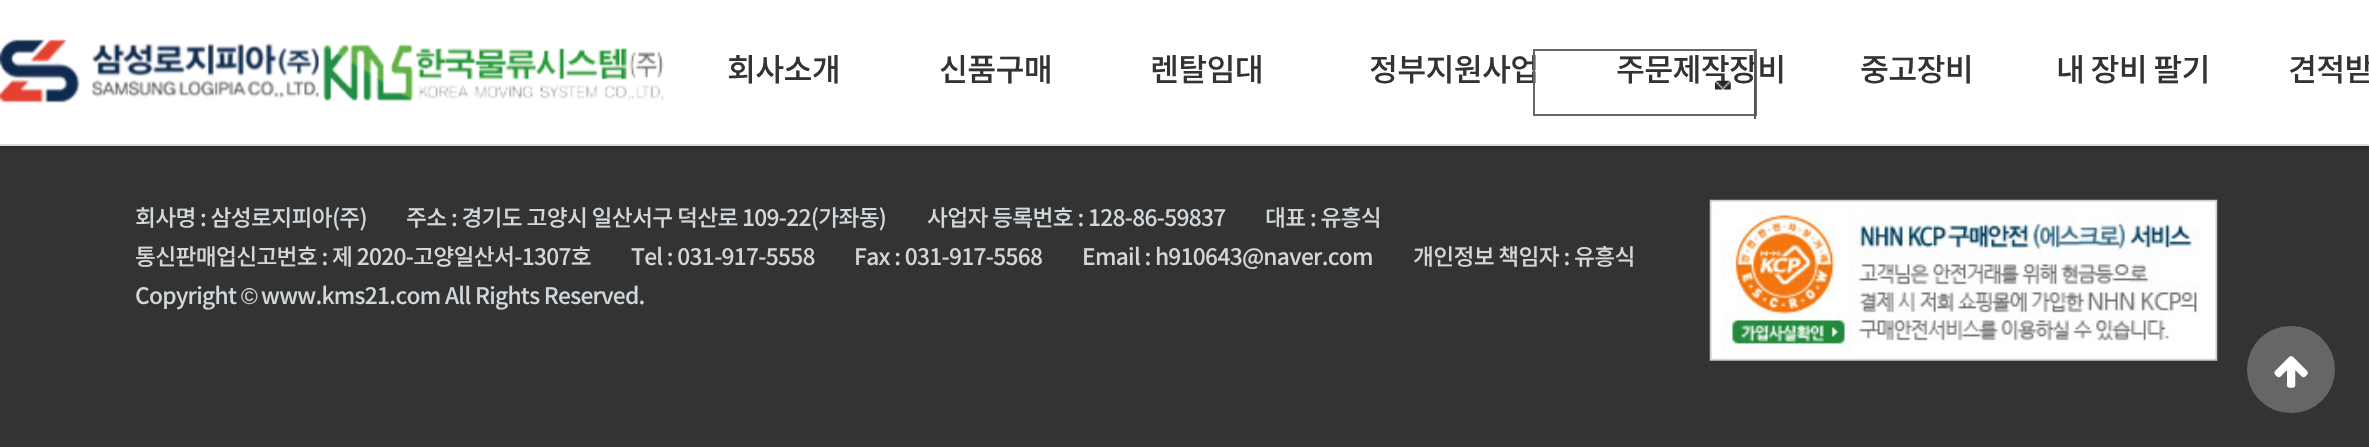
void draw(SkCanvas* canvas) {
    SkPaint paint;
    paint.setAntiAlias(true);
    auto spacedText = [&](const char* s, float x, float y, const SkFont& font, const SkPaint& ink, float letter, float word) {
        std::vector<SkGlyphID> glyphs(font.countText(s, strlen(s), SkTextEncoding::kUTF8));
        std::vector<float> xs(glyphs.size());
        font.textToGlyphs(s, strlen(s), SkTextEncoding::kUTF8, glyphs);
        font.getXPos(glyphs, xs, x);
        float extra = 0;
        for (size_t i = 0; i < glyphs.size(); i++) {
            xs[i] += extra;
            extra += letter + word * (glyphs[i] == font.unicharToGlyph(' '));
        }
        canvas->drawTextBlob(SkTextBlob::MakeFromPosHGlyphs(glyphs, xs, y, font), 0, 0, ink);
    };
    canvas->clear(0xFF333333);
    paint.setColor(0x4D000000);
    paint.setMaskFilter(SkMaskFilter::MakeBlur(kNormal_SkBlurStyle, 2.5f));
    canvas->drawRect(SkRect::MakeXYWH(0, 2, 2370, 145), paint);
    paint.setMaskFilter(nullptr);
    paint.setColor(0xFFFFFFFF);
    canvas->drawRect(SkRect::MakeXYWH(0, 0, 2369, 144), paint);
    paint.setColor(0xFFDDDDDD);
    canvas->drawRect(SkRect::MakeXYWH(0, 144, 2369, 2), paint);
    canvas->drawImageRect(SkImages::DeferredFromEncodedData(SkData::MakeFromFileName("img1.png")), SkRect::MakeXYWH(0, 39, 664, 64), SkSamplingOptions());
    SkFont font1(fontMgr->matchFamilyStyle("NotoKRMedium", SkFontStyle(500, SkFontStyle::kNormal_Width, SkFontStyle::kUpright_Slant)), 31.5f);
    font1.setSubpixel(true);
    paint.setColor(0xFF333333);
    spacedText("회사소개", 727, 81, font1, paint, -0.75f, 0);
    spacedText("신품구매", 939, 81, font1, paint, -0.75f, 0);
    spacedText("렌탈임대", 1150, 81, font1, paint, -0.75f, 0);
    spacedText("정부지원사업", 1369, 81, font1, paint, -0.75f, 0);
    spacedText("주문제작장비", 1616, 81, font1, paint, -0.75f, 0);
    spacedText("중고장비", 1860, 81, font1, paint, -0.75f, 0);
    spacedText("내 장비 팔기", 2056, 81, font1, paint, -0.75f, 0);
    spacedText("견적받", 2288, 81, font1, paint, -0.75f, 0);
    paint.setStyle(SkPaint::kStroke_Style);
    paint.setStrokeWidth(2);
    paint.setColor(0xFF666666);
    canvas->drawRect(SkRect::MakeXYWH(1534, 50, 222, 65), paint);
    canvas->drawImageRect(SkImages::DeferredFromEncodedData(SkData::MakeFromFileName("img2.png")), SkRect::MakeXYWH(1715, 80, 16, 10), SkSamplingOptions());
    paint.setStyle(SkPaint::kFill_Style);
    paint.setColor(0xFF555555);
    canvas->drawRect(SkRect::MakeXYWH(1754, 51, 2, 68), paint);
    SkFont font2(fontMgr->matchFamilyStyle("NotoKRMedium", SkFontStyle(500, SkFontStyle::kNormal_Width, SkFontStyle::kUpright_Slant)), 22.75f);
    font2.setSubpixel(true);
    paint.setColor(0xFFD1D7DA);
    spacedText("회사명 : 삼성로지피아(주)", 135, 226, font2, paint, -0.7f, 0);
    spacedText("주소 : 경기도 고양시 일산서구 덕산로 109-22(가좌동)", 406, 226, font2, paint, -0.7f, 0);
    spacedText("사업자 등록번호 : 128-86-59837", 927, 226, font2, paint, -0.7f, 0);
    spacedText("대표 : 유흥식", 1265, 226, font2, paint, -0.7f, 0);
    spacedText("통신판매업신고번호 : 제 2020-고양일산서-1307호", 135, 265, font2, paint, -0.7f, 0);
    spacedText("Tel : 031-917-5558", 631, 265, font2, paint, -0.7f, 0);
    spacedText("Fax : 031-917-5568", 854, 265, font2, paint, -0.7f, 0);
    spacedText("Email : h910643@naver.com", 1082, 265, font2, paint, -0.7f, 0);
    spacedText("개인정보 책임자 : 유흥식", 1413, 265, font2, paint, -0.7f, 0);
    spacedText("Copyright", 135, 304, font2, paint, -0.7f, 0);
    SkFont font3(fontMgr->matchFamilyStyle("Liberation Sans", SkFontStyle::Normal()), 22.75f);
    font3.setSubpixel(true);
    spacedText("©", 241, 304, font3, paint, -0.7f, 0);
    spacedText("www.kms21.com All Rights Reserved.", 261, 304, font2, paint, -0.7f, 0);
    canvas->drawImageRect(SkImages::DeferredFromEncodedData(SkData::MakeFromFileName("img3.png")), SkRect::MakeXYWH(1709, 199, 509, 162), SkSamplingOptions());
    paint.setColor(0xFF666666);
    canvas->drawRoundRect(SkRect::MakeXYWH(2247, 326, 88, 87), 43.5f, 43.5f, paint);
    canvas->drawImageRect(SkImages::DeferredFromEncodedData(SkData::MakeFromFileName("img4.png")), SkRect::MakeXYWH(2274, 356, 34, 32), SkSamplingOptions());
}
